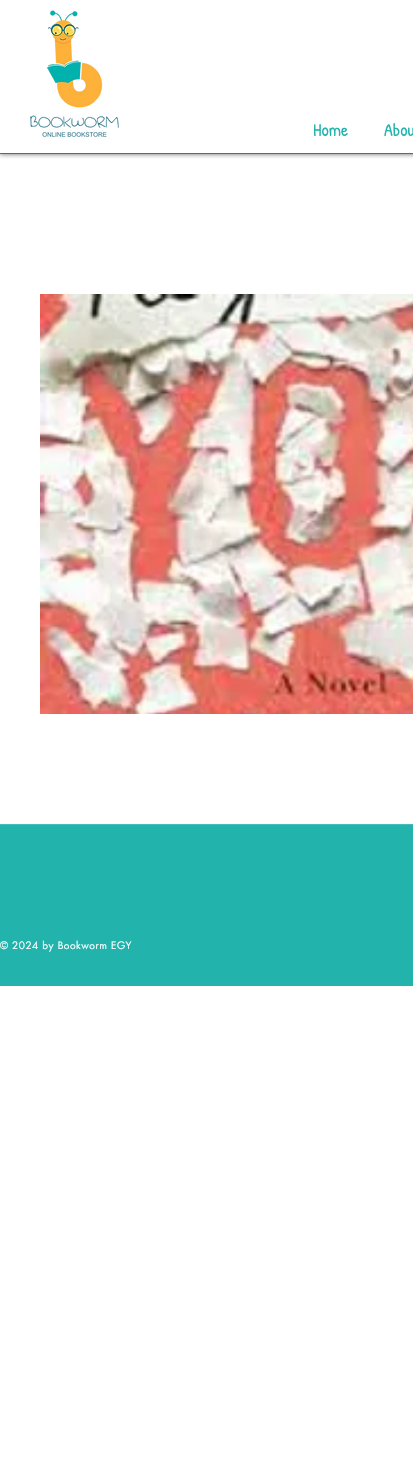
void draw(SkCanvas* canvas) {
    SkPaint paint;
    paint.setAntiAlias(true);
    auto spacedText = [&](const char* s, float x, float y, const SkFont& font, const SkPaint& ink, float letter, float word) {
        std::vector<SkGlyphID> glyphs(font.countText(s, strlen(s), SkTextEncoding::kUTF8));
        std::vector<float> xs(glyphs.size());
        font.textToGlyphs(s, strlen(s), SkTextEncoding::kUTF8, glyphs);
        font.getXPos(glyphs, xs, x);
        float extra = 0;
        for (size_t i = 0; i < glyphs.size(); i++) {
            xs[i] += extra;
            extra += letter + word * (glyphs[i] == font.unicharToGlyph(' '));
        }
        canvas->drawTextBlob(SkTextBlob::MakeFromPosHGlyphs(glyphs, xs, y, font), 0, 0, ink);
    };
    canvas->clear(0xFFFFFFFF);
    canvas->save();
    canvas->clipRect(SkRect::MakeXYWH(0, 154, 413, 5));
    paint.setColor(0x99000000);
    paint.setMaskFilter(SkMaskFilter::MakeBlur(kNormal_SkBlurStyle, 2.5f));
    canvas->drawRect(SkRect::MakeXYWH(0, 0, 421, 154), paint);
    paint.setMaskFilter(nullptr);
    canvas->restore();
    paint.setColor(0xFF666666);
    canvas->drawRect(SkRect::MakeXYWH(0, 153, 413, 1), paint);
    canvas->drawImageRect(SkImages::DeferredFromEncodedData(SkData::MakeFromFileName("img1.png")), SkRect::MakeXYWH(30, 10, 89, 128), SkSamplingOptions());
    SkFont font1(fontMgr->matchFamilyStyle("Patrick Hand", SkFontStyle::Normal()), 18);
    font1.setSubpixel(true);
    paint.setColor(0xFF22B3AD);
    canvas->drawString("Home", 313, 136, font1, paint);
    canvas->drawString("Abou", 384, 136, font1, paint);
    canvas->drawImageRect(SkImages::DeferredFromEncodedData(SkData::MakeFromFileName("img2.png")), SkRect::MakeXYWH(40, 294, 373, 420), SkSamplingOptions());
    canvas->drawRect(SkRect::MakeXYWH(0, 825, 413, 161), paint);
    paint.setColor(0xFF41BEB9);
    canvas->drawRect(SkRect::MakeXYWH(0, 824, 413, 1), paint);
    SkFont font2(fontMgr->matchFamilyStyle("futura", SkFontStyle::Normal()), 10);
    font2.setSubpixel(true);
    paint.setColor(0xFFFFFFFF);
    spacedText("© 2024 by Bookworm EGY", 0, 949, font2, paint, 0.5f, 0);
}
